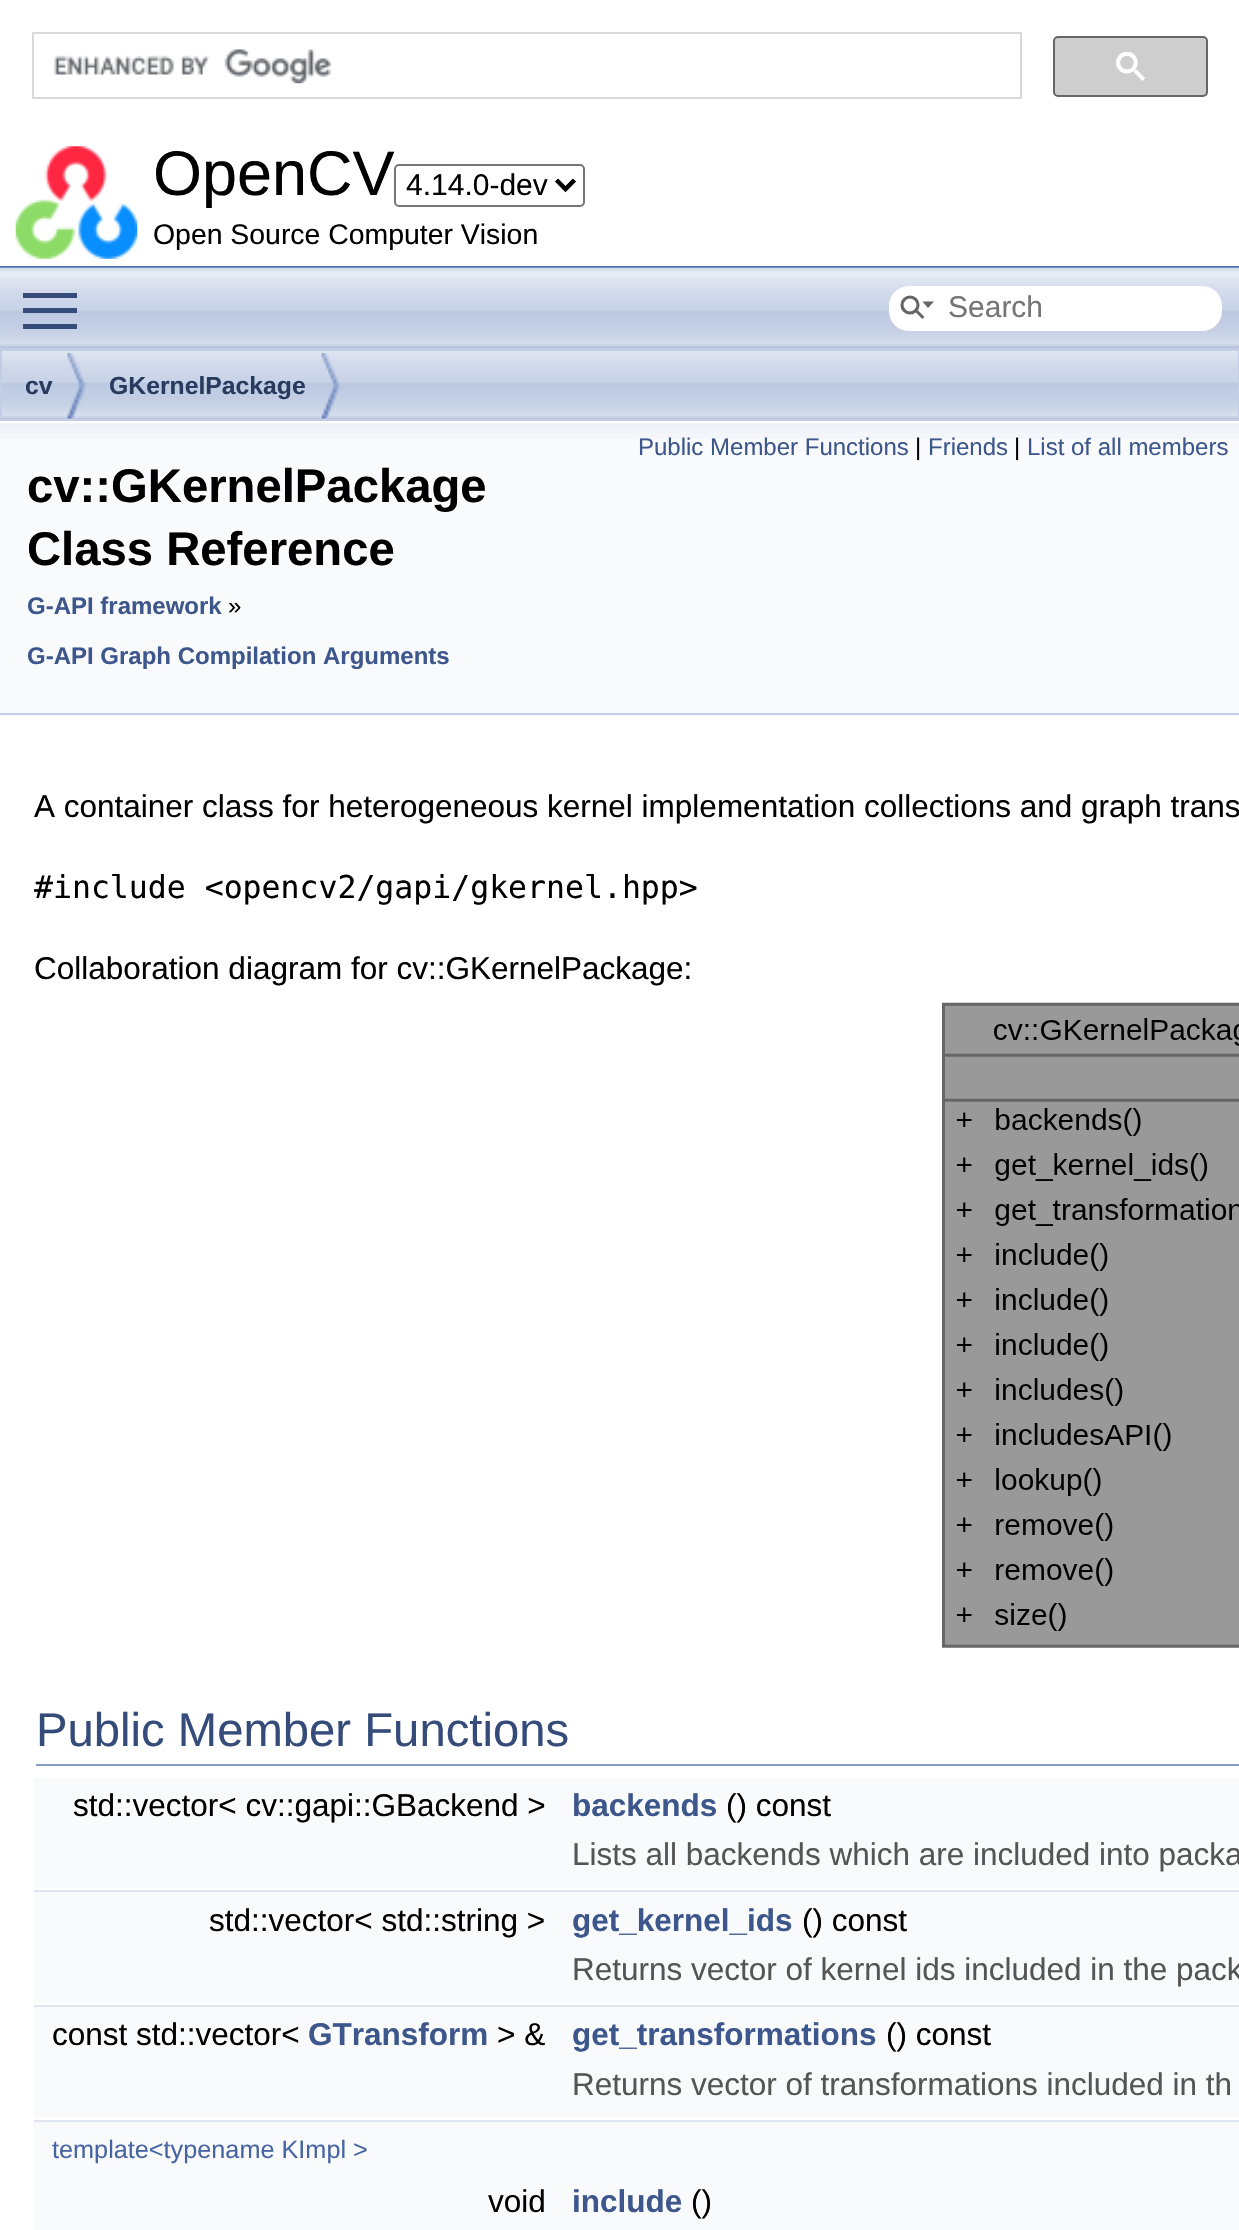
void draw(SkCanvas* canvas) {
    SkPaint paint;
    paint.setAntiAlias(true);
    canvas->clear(0xFFFFFFFF);
    paint.setColor(0xFF5373B4);
    canvas->drawRect(SkRect::MakeXYWH(0, 266, 1239, 2), paint);
    paint.setStyle(SkPaint::kStroke_Style);
    paint.setStrokeWidth(2);
    paint.setColor(0xFFD9D9D9);
    canvas->drawRect(SkRect::MakeXYWH(33, 33, 988, 65), paint);
    canvas->drawImageRect(SkImages::DeferredFromEncodedData(SkData::MakeFromFileName("img1.png")), SkRect::MakeXYWH(54, 49, 277, 35), SkSamplingOptions());
    paint.setStyle(SkPaint::kFill_Style);
    paint.setColor(0xFFCECECE);
    canvas->drawRoundRect(SkRect::MakeXYWH(1054, 37, 153, 59), 4, 4, paint);
    paint.setStyle(SkPaint::kStroke_Style);
    paint.setColor(0xFF666666);
    canvas->drawRoundRect(SkRect::MakeXYWH(1054, 37, 153, 59), 4, 4, paint);
    canvas->drawImageRect(SkImages::DeferredFromEncodedData(SkData::MakeFromFileName("img2.png")), SkRect::MakeXYWH(1116, 52, 29, 29), SkSamplingOptions());
    canvas->drawImageRect(SkImages::DeferredFromEncodedData(SkData::MakeFromFileName("img3.png")), SkRect::MakeXYWH(15, 146, 123, 113), SkSamplingOptions());
    SkFont font1(fontMgr->matchFamilyStyle("Liberation Sans", SkFontStyle::Normal()), 63);
    font1.setSubpixel(true);
    paint.setStyle(SkPaint::kFill_Style);
    paint.setColor(0xFF000000);
    canvas->drawString("OpenCV", 153, 195, font1, paint);
    paint.setStyle(SkPaint::kStroke_Style);
    paint.setColor(0xFF767676);
    canvas->drawRoundRect(SkRect::MakeXYWH(395, 165, 189, 41), 4, 4, paint);
    paint.setStrokeWidth(4.5f);
    paint.setColor(0xFF000000);
    canvas->drawPath(SkPathBuilder().moveTo(556.5f, 180).lineTo(565.5f, 189).lineTo(574.5f, 180).detach(), paint);
    SkFont font2(fontMgr->matchFamilyStyle("Liberation Sans", SkFontStyle::Normal()), 30);
    font2.setSubpixel(true);
    paint.setStyle(SkPaint::kFill_Style);
    canvas->drawString("4.14.0-dev", 406, 195, font2, paint);
    SkFont font3(fontMgr->matchFamilyStyle("Liberation Sans", SkFontStyle::Normal()), 28.4f);
    font3.setSubpixel(true);
    canvas->drawString("Open Source Computer Vision", 153, 244, font3, paint);
    canvas->drawImageRect(SkImages::DeferredFromEncodedData(SkData::MakeFromFileName("img5.png")), SkRect::MakeXYWH(0, 348, 1239, 71), SkSamplingOptions());
    canvas->drawImageRect(SkImages::DeferredFromEncodedData(SkData::MakeFromFileName("img4.png")), SkRect::MakeXYWH(0, 267, 1239, 82), SkSamplingOptions());
    paint.setColor(0xFF364D7C);
    canvas->drawRect(SkRect::MakeXYWH(23, 308, 54, 5), paint);
    canvas->drawRect(SkRect::MakeXYWH(23, 293, 54, 5), paint);
    canvas->drawRect(SkRect::MakeXYWH(23, 324, 54, 5), paint);
    paint.setColor(0xFFFFFFFF);
    canvas->drawRoundRect(SkRect::MakeXYWH(889, 286, 333, 45), 20, 20, paint);
    paint.setStyle(SkPaint::kStroke_Style);
    paint.setStrokeWidth(3.1f);
    paint.setColor(0xFF656565);
    canvas->drawCircle(910, 305, 8, paint);
    paint.setStyle(SkPaint::kFill_Style);
    canvas->drawPath(SkPathBuilder().moveTo(922.5f, 301.5f).lineTo(928, 308).lineTo(934, 301.5f).close().detach(), paint);
    paint.setStyle(SkPaint::kStroke_Style);
    paint.setStrokeCap(SkPaint::kRound_Cap);
    canvas->drawPath(SkPathBuilder().moveTo(916, 310.5f).lineTo(922.5f, 317).detach(), paint);
    paint.setStyle(SkPaint::kFill_Style);
    paint.setColor(0xFF757575);
    canvas->drawString("Search", 948, 317, font2, paint);
    paint.setStyle(SkPaint::kStroke_Style);
    paint.setStrokeWidth(2);
    paint.setStrokeCap(SkPaint::kButt_Cap);
    paint.setColor(0xFFC2CDE4);
    canvas->drawRect(SkRect::MakeXYWH(1, 350, 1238, 70), paint);
    canvas->drawImageRect(SkImages::DeferredFromEncodedData(SkData::MakeFromFileName("img6.png")), SkRect::MakeXYWH(67, 353, 19, 66), SkSamplingOptions());
    SkFont font4(fontMgr->matchFamilyStyle("Liberation Sans", SkFontStyle::Bold()), 24.75f);
    font4.setSubpixel(true);
    paint.setStyle(SkPaint::kFill_Style);
    paint.setColor(0xFF283A5D);
    canvas->drawString("cv", 25, 394, font4, paint);
    canvas->drawImageRect(SkImages::DeferredFromEncodedData(SkData::MakeFromFileName("img7.png")), SkRect::MakeXYWH(321, 353, 19, 66), SkSamplingOptions());
    canvas->drawString("GKernelPackage", 109, 394, font4, paint);
    paint.setColor(0xFFF9FAFC);
    canvas->drawRect(SkRect::MakeXYWH(0, 439, 1239, 277), paint);
    canvas->drawImageRect(SkImages::DeferredFromEncodedData(SkData::MakeFromFileName("img8.png")), SkRect::MakeXYWH(0, 421, 1239, 18), SkSamplingOptions());
    paint.setColor(0xFFC4CFE5);
    canvas->drawRect(SkRect::MakeXYWH(0, 713, 1239, 2), paint);
    SkFont font5(fontMgr->matchFamilyStyle("Liberation Sans", SkFontStyle::Normal()), 24);
    font5.setSubpixel(true);
    paint.setColor(0xFF3D578C);
    canvas->drawString("Public Member Functions", 638, 455, font5, paint);
    paint.setColor(0xFF000000);
    canvas->drawString("|", 915, 455, font5, paint);
    paint.setColor(0xFF3D578C);
    canvas->drawString("Friends", 928, 455, font5, paint);
    paint.setColor(0xFF000000);
    canvas->drawString("|", 1014, 455, font5, paint);
    paint.setColor(0xFF3D578C);
    canvas->drawString("List of all members", 1027, 455, font5, paint);
    SkFont font6(fontMgr->matchFamilyStyle("Liberation Sans", SkFontStyle::Bold()), 47.25f);
    font6.setSubpixel(true);
    paint.setColor(0xFF000000);
    canvas->drawString("cv::GKernelPackage", 27, 502, font6, paint);
    canvas->drawString("Class Reference", 27, 565, font6, paint);
    SkFont font7(fontMgr->matchFamilyStyle("Liberation Sans", SkFontStyle::Bold()), 24);
    font7.setSubpixel(true);
    paint.setColor(0xFF3D578C);
    canvas->drawString("G-API framework", 27, 614, font7, paint);
    paint.setColor(0xFF000000);
    canvas->drawString("»", 228, 614, font5, paint);
    paint.setColor(0xFF3D578C);
    canvas->drawString("G-API Graph Compilation Arguments", 27, 664, font7, paint);
    SkFont font8(fontMgr->matchFamilyStyle("Liberation Sans", SkFontStyle::Normal()), 31.5f);
    font8.setSubpixel(true);
    paint.setColor(0xFF000000);
    canvas->drawString("A container class for heterogeneous kernel implementation collections and graph trans", 34, 817, font8, paint);
    SkFont font9(fontMgr->matchFamilyStyle("DejaVu Sans Mono", SkFontStyle::Normal()), 31.5f);
    font9.setSubpixel(true);
    canvas->drawString("#include <opencv2/gapi/gkernel.hpp>", 34, 898, font9, paint);
    canvas->drawString("Collaboration diagram for cv::GKernelPackage:", 34, 979, font8, paint);
    canvas->drawImageRect(SkImages::DeferredFromEncodedData(SkData::MakeFromFileName("img9.png")), SkRect::MakeXYWH(942, 1002, 297, 646), SkSamplingOptions());
    paint.setColor(0xFF879ECB);
    canvas->drawRect(SkRect::MakeXYWH(36, 1764, 1203, 2), paint);
    SkFont font10(fontMgr->matchFamilyStyle("Liberation Sans", SkFontStyle::Normal()), 47.25f);
    font10.setSubpixel(true);
    paint.setColor(0xFF354C7B);
    canvas->drawString("Public Member Functions", 36, 1746, font10, paint);
    paint.setColor(0xFFF9FAFC);
    canvas->drawRect(SkRect::MakeXYWH(34, 1778, 1205, 51), paint);
    paint.setColor(0xFF000000);
    canvas->drawString("std::vector< cv::gapi::GBackend >", 73, 1816, font8, paint);
    SkFont font11(fontMgr->matchFamilyStyle("Liberation Sans", SkFontStyle::Bold()), 31.5f);
    font11.setSubpixel(true);
    paint.setColor(0xFF3D578C);
    canvas->drawString("backends", 572, 1816, font11, paint);
    paint.setColor(0xFF000000);
    canvas->drawString("() const", 726, 1816, font8, paint);
    paint.setColor(0xFFF9FAFC);
    canvas->drawRect(SkRect::MakeXYWH(34, 1829, 1205, 59), paint);
    paint.setColor(0xFF555555);
    canvas->drawString("Lists all backends which are included into packa", 572, 1865, font8, paint);
    paint.setColor(0xFFDEE4F0);
    canvas->drawRect(SkRect::MakeXYWH(34, 1890, 1205, 2), paint);
    paint.setColor(0xFFF9FAFC);
    canvas->drawRect(SkRect::MakeXYWH(34, 1892, 1205, 52), paint);
    paint.setColor(0xFF000000);
    canvas->drawString("std::vector< std::string >", 209, 1931, font8, paint);
    paint.setColor(0xFF3D578C);
    canvas->drawString("get_kernel_ids", 572, 1931, font11, paint);
    paint.setColor(0xFF000000);
    canvas->drawString("() const", 802, 1931, font8, paint);
    paint.setColor(0xFFF9FAFC);
    canvas->drawRect(SkRect::MakeXYWH(34, 1944, 1205, 59), paint);
    paint.setColor(0xFF555555);
    canvas->drawString("Returns vector of kernel ids included in the pack", 572, 1980, font8, paint);
    paint.setColor(0xFFDEE4F0);
    canvas->drawRect(SkRect::MakeXYWH(34, 2005, 1205, 2), paint);
    paint.setColor(0xFFF9FAFC);
    canvas->drawRect(SkRect::MakeXYWH(34, 2007, 1205, 52), paint);
    paint.setColor(0xFF000000);
    canvas->drawString("const std::vector<", 52, 2045, font8, paint);
    paint.setColor(0xFF3D578C);
    canvas->drawString("GTransform", 308, 2045, font11, paint);
    paint.setColor(0xFF000000);
    canvas->drawString("> &", 497, 2045, font8, paint);
    paint.setColor(0xFF3D578C);
    canvas->drawString("get_transformations", 572, 2045, font11, paint);
    paint.setColor(0xFF000000);
    canvas->drawString("() const", 886, 2045, font8, paint);
    paint.setColor(0xFFF9FAFC);
    canvas->drawRect(SkRect::MakeXYWH(34, 2059, 1205, 58), paint);
    paint.setColor(0xFF555555);
    canvas->drawString("Returns vector of transformations included in th", 572, 2095, font8, paint);
    paint.setColor(0xFFDEE4F0);
    canvas->drawRect(SkRect::MakeXYWH(34, 2120, 1205, 2), paint);
    paint.setColor(0xFFF9FAFC);
    canvas->drawRect(SkRect::MakeXYWH(34, 2122, 1205, 52), paint);
    SkFont font12(fontMgr->matchFamilyStyle("Liberation Sans", SkFontStyle::Normal()), 25.25f);
    font12.setSubpixel(true);
    paint.setColor(0xFF4665A2);
    canvas->drawString("template<typename KImpl >", 52, 2158, font12, paint);
    paint.setColor(0xFFF9FAFC);
    canvas->drawRect(SkRect::MakeXYWH(34, 2174, 1205, 51), paint);
    paint.setColor(0xFF000000);
    canvas->drawString("void", 488, 2212, font8, paint);
    paint.setColor(0xFF3D578C);
    canvas->drawString("include", 572, 2212, font11, paint);
    paint.setColor(0xFF000000);
    canvas->drawString("()", 691, 2212, font8, paint);
    paint.setColor(0xFFF9FAFC);
    canvas->drawRect(SkRect::MakeXYWH(34, 2225, 1205, 5), paint);
}
